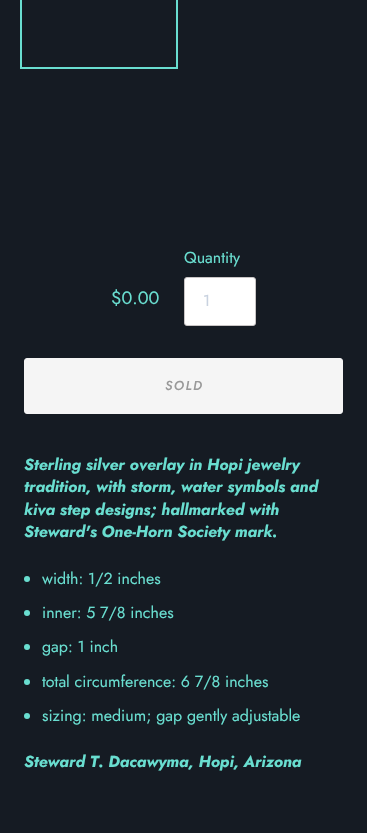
void draw(SkCanvas* canvas) {
    SkPaint paint;
    paint.setAntiAlias(true);
    auto spacedText = [&](const char* s, float x, float y, const SkFont& font, const SkPaint& ink, float letter, float word) {
        std::vector<SkGlyphID> glyphs(font.countText(s, strlen(s), SkTextEncoding::kUTF8));
        std::vector<float> xs(glyphs.size());
        font.textToGlyphs(s, strlen(s), SkTextEncoding::kUTF8, glyphs);
        font.getXPos(glyphs, xs, x);
        float extra = 0;
        for (size_t i = 0; i < glyphs.size(); i++) {
            xs[i] += extra;
            extra += letter + word * (glyphs[i] == font.unicharToGlyph(' '));
        }
        canvas->drawTextBlob(SkTextBlob::MakeFromPosHGlyphs(glyphs, xs, y, font), 0, 0, ink);
    };
    canvas->clear(0xFF151B23);
    paint.setStyle(SkPaint::kStroke_Style);
    paint.setStrokeWidth(4);
    paint.setColor(0xFF69DED0);
    canvas->drawRect(SkRect::MakeXYWH(22, -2, 154, 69), paint);
    paint.setStrokeWidth(2);
    paint.setColor(0xFF151B23);
    canvas->drawRect(SkRect::MakeXYWH(23, -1, 152, 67), paint);
    SkFont font1(fontMgr->matchFamilyStyle("Jost", SkFontStyle::Normal()), 18);
    font1.setSubpixel(true);
    paint.setStyle(SkPaint::kFill_Style);
    paint.setColor(0xFF69DED0);
    canvas->drawString("$0.00", 111, 304, font1, paint);
    SkFont font2(fontMgr->matchFamilyStyle("Jost", SkFontStyle::Normal()), 16);
    font2.setSubpixel(true);
    canvas->drawString("Quantity", 184, 263, font2, paint);
    paint.setColor(0xFFFFFFFF);
    canvas->drawRoundRect(SkRect::MakeXYWH(184.5f, 277.5f, 71, 48), 2.5f, 2.5f, paint);
    paint.setStyle(SkPaint::kStroke_Style);
    paint.setStrokeWidth(1);
    paint.setColor(0xFFC9C5C5);
    canvas->drawRoundRect(SkRect::MakeXYWH(184.5f, 277.5f, 71, 48), 2.5f, 2.5f, paint);
    paint.setStyle(SkPaint::kFill_Style);
    paint.setColor(0xFFC9D2E0);
    canvas->drawString("1", 203, 306, font2, paint);
    paint.setColor(0xFFF5F5F5);
    canvas->drawRoundRect(SkRect::MakeXYWH(24.5f, 358.5f, 318, 55), 2.5f, 2.5f, paint);
    paint.setStyle(SkPaint::kStroke_Style);
    canvas->drawRoundRect(SkRect::MakeXYWH(24.5f, 358.5f, 318, 55), 2.5f, 2.5f, paint);
    SkFont font3(fontMgr->matchFamilyStyle("Jost", SkFontStyle(500, SkFontStyle::kNormal_Width, SkFontStyle::kItalic_Slant)), 13);
    font3.setSubpixel(true);
    paint.setStyle(SkPaint::kFill_Style);
    paint.setColor(0xFF999999);
    spacedText("SOLD", 165, 390, font3, paint, 1.5f, 0);
    SkFont font4(fontMgr->matchFamilyStyle("Jost", SkFontStyle::BoldItalic()), 16);
    font4.setSubpixel(true);
    paint.setColor(0xFF69DED0);
    canvas->drawString("Sterling silver overlay in Hopi jewelry", 24, 470, font4, paint);
    canvas->drawString("tradition, with storm, water symbols and", 24, 492, font4, paint);
    canvas->drawString("kiva step designs; hallmarked with", 24, 515, font4, paint);
    canvas->drawString("Steward's One-Horn Society mark.", 24, 537, font4, paint);
    canvas->drawCircle(27, 579, 3, paint);
    canvas->drawString("width: 1/2 inches", 42, 584, font2, paint);
    canvas->drawCircle(27, 613, 3, paint);
    canvas->drawString("inner: 5 7/8 inches", 42, 618, font2, paint);
    canvas->drawCircle(27, 647, 3, paint);
    canvas->drawString("gap: 1 inch", 42, 652, font2, paint);
    canvas->drawCircle(27, 682, 3, paint);
    canvas->drawString("total circumference: 6 7/8 inches", 42, 687, font2, paint);
    canvas->drawCircle(27, 716, 3, paint);
    canvas->drawString("sizing: medium; gap gently adjustable", 42, 721, font2, paint);
    canvas->drawString("Steward T. Dacawyma, Hopi, Arizona", 24, 767, font4, paint);
}
